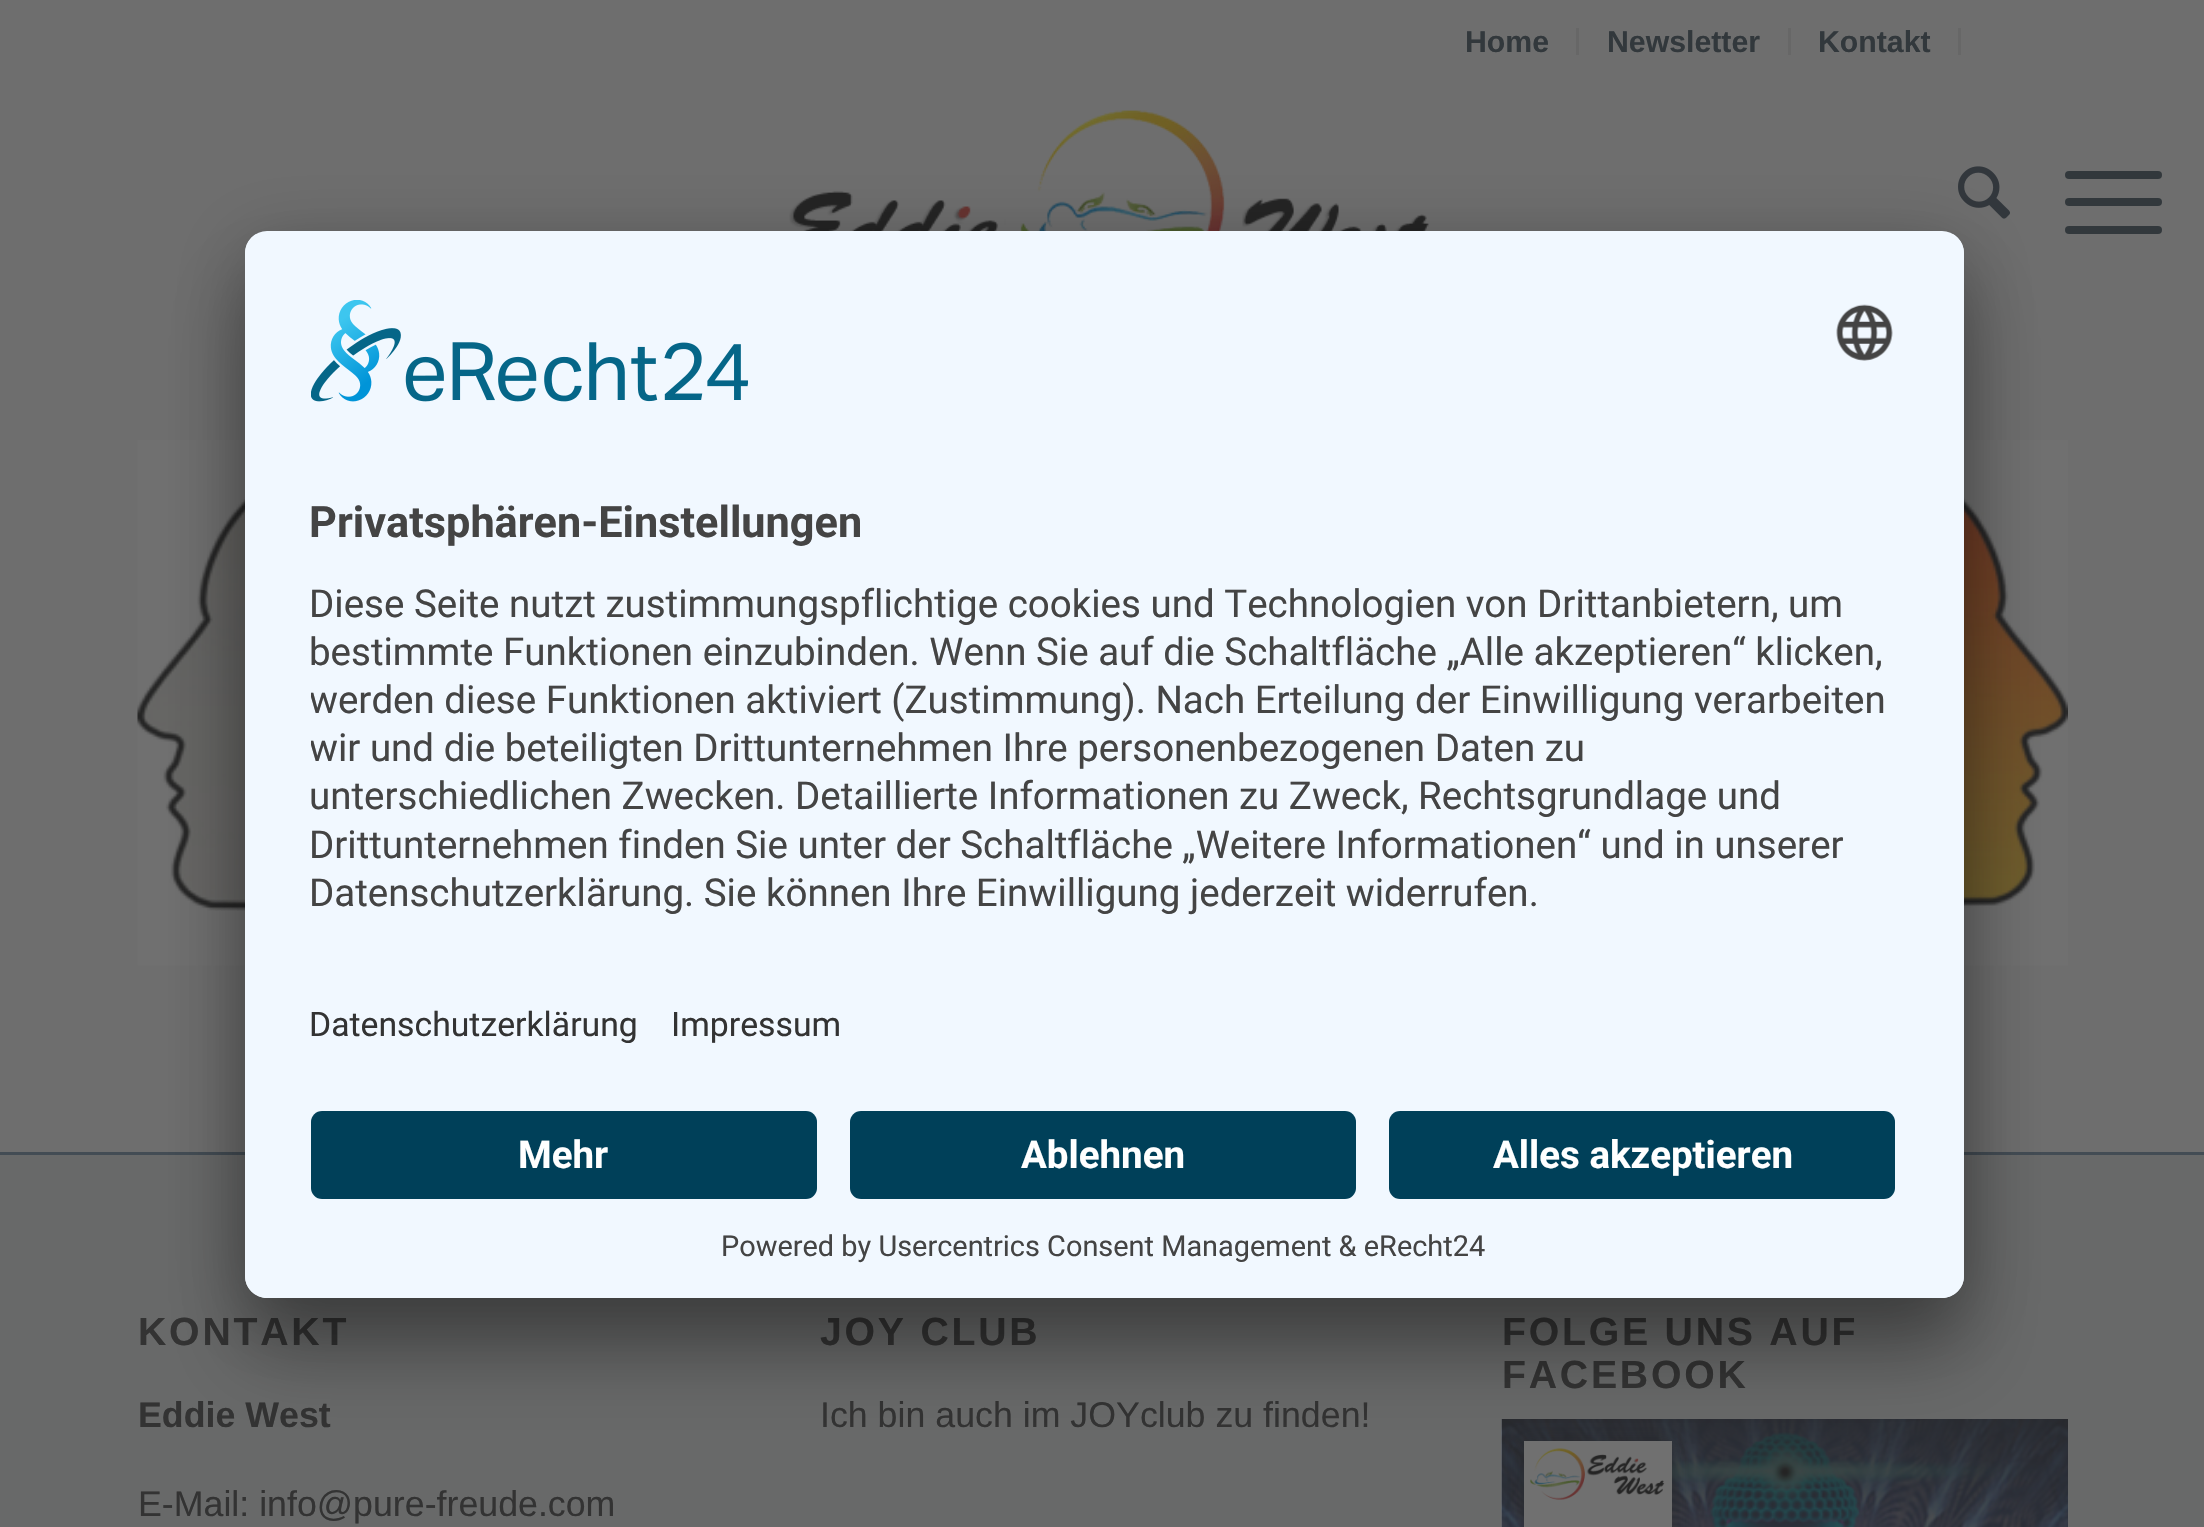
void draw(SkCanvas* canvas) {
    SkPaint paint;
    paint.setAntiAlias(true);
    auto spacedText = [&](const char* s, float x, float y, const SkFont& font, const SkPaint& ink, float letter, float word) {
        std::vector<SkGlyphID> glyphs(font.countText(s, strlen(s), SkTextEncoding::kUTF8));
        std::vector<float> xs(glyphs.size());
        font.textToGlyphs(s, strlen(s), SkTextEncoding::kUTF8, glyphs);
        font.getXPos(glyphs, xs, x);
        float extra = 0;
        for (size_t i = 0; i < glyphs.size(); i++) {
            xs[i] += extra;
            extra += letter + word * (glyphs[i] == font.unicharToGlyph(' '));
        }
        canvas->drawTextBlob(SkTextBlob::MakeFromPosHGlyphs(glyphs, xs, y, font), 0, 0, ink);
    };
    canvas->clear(0xFF6E6E6E);
    paint.setColor(0xFF676767);
    canvas->drawRect(SkRect::MakeXYWH(1576, 28, 3, 27), paint);
    SkFont font1(fontMgr->matchFamilyStyle("Liberation Sans", SkFontStyle::Bold()), 30.25f);
    font1.setSubpixel(true);
    paint.setColor(0xFF32383C);
    canvas->drawString("Home", 1465, 52, font1, paint);
    paint.setColor(0xFF676767);
    canvas->drawRect(SkRect::MakeXYWH(1788, 28, 3, 27), paint);
    paint.setColor(0xFF32383C);
    canvas->drawString("Newsletter", 1607, 52, font1, paint);
    paint.setColor(0xFF676767);
    canvas->drawRect(SkRect::MakeXYWH(1958, 28, 3, 27), paint);
    paint.setColor(0xFF32383C);
    canvas->drawString("Kontakt", 1818, 52, font1, paint);
    canvas->drawImageRect(SkImages::DeferredFromEncodedData(SkData::MakeFromFileName("img1.png")), SkRect::MakeXYWH(789, 110, 640, 121), SkSamplingOptions());
    canvas->drawImageRect(SkImages::DeferredFromEncodedData(SkData::MakeFromFileName("img2.png")), SkRect::MakeXYWH(1958, 166, 52, 53), SkSamplingOptions());
    canvas->drawRoundRect(SkRect::MakeXYWH(2065, 198, 97, 8), 4, 4, paint);
    canvas->drawRoundRect(SkRect::MakeXYWH(2065, 171, 97, 8), 4, 4, paint);
    canvas->drawRoundRect(SkRect::MakeXYWH(2065, 226, 97, 8), 4, 4, paint);
    canvas->drawImageRect(SkImages::DeferredFromEncodedData(SkData::MakeFromFileName("img3.png")), SkRect::MakeXYWH(137, 440, 1931, 526), SkSamplingOptions());
    paint.setColor(0xFF686969);
    canvas->drawRect(SkRect::MakeXYWH(0, 1155, 2204, 372), paint);
    paint.setColor(0xFF434C54);
    canvas->drawRect(SkRect::MakeXYWH(0, 1152, 2204, 3), paint);
    SkFont font2(fontMgr->matchFamilyStyle("Liberation Sans", SkFontStyle::Bold()), 39.25f);
    font2.setSubpixel(true);
    paint.setColor(0xFF333333);
    spacedText("KONTAKT", 138, 1345, font2, paint, 2.75f, 0);
    SkFont font3(fontMgr->matchFamilyStyle("Liberation Sans", SkFontStyle::Bold()), 35.75f);
    font3.setSubpixel(true);
    canvas->drawString("Eddie West", 138, 1427, font3, paint);
    SkFont font4(fontMgr->matchFamilyStyle("Liberation Sans", SkFontStyle::Normal()), 35.75f);
    font4.setSubpixel(true);
    canvas->drawString("E-Mail: info@pure-freude.com", 138, 1516, font4, paint);
    spacedText("JOY CLUB", 820, 1345, font2, paint, 2.75f, 0);
    canvas->drawString("Ich bin auch im JOYclub zu finden!", 820, 1427, font4, paint);
    spacedText("FOLGE UNS AUF", 1502, 1345, font2, paint, 2.75f, 0);
    spacedText("FACEBOOK", 1502, 1388, font2, paint, 2.75f, 0);
    canvas->drawImageRect(SkImages::DeferredFromEncodedData(SkData::MakeFromFileName("img4.png")), SkRect::MakeXYWH(1501, 1419, 567, 108), SkSamplingOptions());
    paint.setColor(0x80242424);
    paint.setMaskFilter(SkMaskFilter::MakeBlur(kNormal_SkBlurStyle, 8));
    canvas->drawRect(SkRect::MakeXYWH(1524, 1444, 148, 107), paint);
    paint.setMaskFilter(nullptr);
    paint.setColor(0xFF707070);
    canvas->drawRect(SkRect::MakeXYWH(1524, 1441, 148, 86), paint);
    canvas->drawImageRect(SkImages::DeferredFromEncodedData(SkData::MakeFromFileName("img5.png")), SkRect::MakeXYWH(1530, 1448, 135, 52), SkSamplingOptions());
    paint.setColor(0x4D000000);
    paint.setMaskFilter(SkMaskFilter::MakeBlur(kNormal_SkBlurStyle, 38.5f));
    canvas->drawRoundRect(SkRect::MakeXYWH(245, 286, 1719, 1067), 22, 22, paint);
    paint.setMaskFilter(nullptr);
    paint.setColor(0x38000000);
    paint.setMaskFilter(SkMaskFilter::MakeBlur(kNormal_SkBlurStyle, 36));
    canvas->drawRoundRect(SkRect::MakeXYWH(245, 245, 1719, 1067), 22, 22, paint);
    paint.setMaskFilter(nullptr);
    paint.setColor(0xFFF1F8FF);
    canvas->drawRoundRect(SkRect::MakeXYWH(245, 231, 1719, 1067), 22, 22, paint);
    canvas->save();
    canvas->clipPath(SkPathBuilder().moveTo(267, 231).lineTo(1942, 231).cubicTo(1954, 231, 1964, 241, 1964, 253).lineTo(1964, 1276).cubicTo(1964, 1288, 1954, 1298, 1942, 1298).lineTo(267, 1298).cubicTo(255, 1298, 245, 1288, 245, 1276).lineTo(245, 253).cubicTo(245, 241, 255, 231, 267, 231).close().detach(), true);
    canvas->clipPath(SkPathBuilder().moveTo(267, 231).lineTo(1942, 231).cubicTo(1954, 231, 1964, 241, 1964, 253).lineTo(1964, 1089).lineTo(245, 1089).lineTo(245, 253).cubicTo(245, 241, 255, 231, 267, 231).close().detach(), true);
    canvas->drawRect(SkRect::MakeXYWH(245, 234, 1719, 855), paint);
    canvas->restore();
    canvas->drawImageRect(SkImages::DeferredFromEncodedData(SkData::MakeFromFileName("img6.png")), SkRect::MakeXYWH(311, 300, 437, 102), SkSamplingOptions());
    canvas->drawImageRect(SkImages::DeferredFromEncodedData(SkData::MakeFromFileName("img7.png")), SkRect::MakeXYWH(1836, 304, 57, 57), SkSamplingOptions());
    SkFont font5(fontMgr->matchFamilyStyle("Roboto", SkFontStyle::Bold()), 43.25f);
    font5.setSubpixel(true);
    paint.setColor(0xFF444444);
    canvas->drawString("Privatsphären-Einstellungen", 309, 537, font5, paint);
    SkFont font6(fontMgr->matchFamilyStyle("Roboto", SkFontStyle::Normal()), 38.5f);
    font6.setSubpixel(true);
    canvas->drawString("Diese Seite nutzt zustimmungspflichtige cookies und Technologien von Drittanbietern, um", 309, 617, font6, paint);
    canvas->drawString("bestimmte Funktionen einzubinden. Wenn Sie auf die Schaltfläche „Alle akzeptieren“ klicken,", 309, 665, font6, paint);
    canvas->save();
    canvas->clipRect(SkRect::MakeXYWH(311, 569, 1587, 361));
    canvas->drawString("werden diese Funktionen aktiviert (Zustimmung). Nach Erteilung der Einwilligung verarbeiten", 309, 713, font6, paint);
    canvas->drawString("wir und die beteiligten Drittunternehmen Ihre personenbezogenen Daten zu", 309, 761, font6, paint);
    canvas->restore();
    canvas->drawString("unterschiedlichen Zwecken. Detaillierte Informationen zu Zweck, Rechtsgrundlage und", 309, 809, font6, paint);
    canvas->drawString("Drittunternehmen finden Sie unter der Schaltfläche „Weitere Informationen“ und in unserer", 309, 858, font6, paint);
    canvas->drawString("Datenschutzerklärung. Sie können Ihre Einwilligung jederzeit widerrufen.", 309, 906, font6, paint);
    SkFont font7(fontMgr->matchFamilyStyle("Roboto", SkFontStyle::Normal()), 33.75f);
    font7.setSubpixel(true);
    paint.setColor(0xFF333333);
    canvas->drawString("Datenschutzerklärung", 309, 1036, font7, paint);
    canvas->drawString("Impressum", 671, 1036, font7, paint);
    paint.setColor(0xFFF1F8FF);
    canvas->drawPath(SkPathBuilder().moveTo(245, 1089).lineTo(1964, 1089).lineTo(1964, 1276).cubicTo(1964, 1288, 1954, 1298, 1942, 1298).lineTo(267, 1298).cubicTo(255, 1298, 245, 1288, 245, 1276).close().detach(), paint);
    paint.setColor(0xFF004059);
    canvas->drawRoundRect(SkRect::MakeXYWH(311, 1111, 506, 88), 11, 11, paint);
    SkFont font8(fontMgr->matchFamilyStyle("Roboto", SkFontStyle::Bold()), 38.5f);
    font8.setSubpixel(true);
    paint.setColor(0xFFFFFFFF);
    canvas->drawString("Mehr", 518, 1168, font8, paint);
    paint.setColor(0xFF004059);
    canvas->drawRoundRect(SkRect::MakeXYWH(850, 1111, 506, 88), 11, 11, paint);
    paint.setColor(0xFFFFFFFF);
    canvas->drawString("Ablehnen", 1021, 1168, font8, paint);
    paint.setColor(0xFF004059);
    canvas->drawRoundRect(SkRect::MakeXYWH(1389, 1111, 506, 88), 11, 11, paint);
    paint.setColor(0xFFFFFFFF);
    canvas->drawString("Alles akzeptieren", 1493, 1168, font8, paint);
    SkFont font9(fontMgr->matchFamilyStyle("Roboto", SkFontStyle::Normal()), 28.9f);
    font9.setSubpixel(true);
    paint.setColor(0xFF444444);
    canvas->drawString("Powered by Usercentrics Consent Management & eRecht24", 721, 1256, font9, paint);
}
